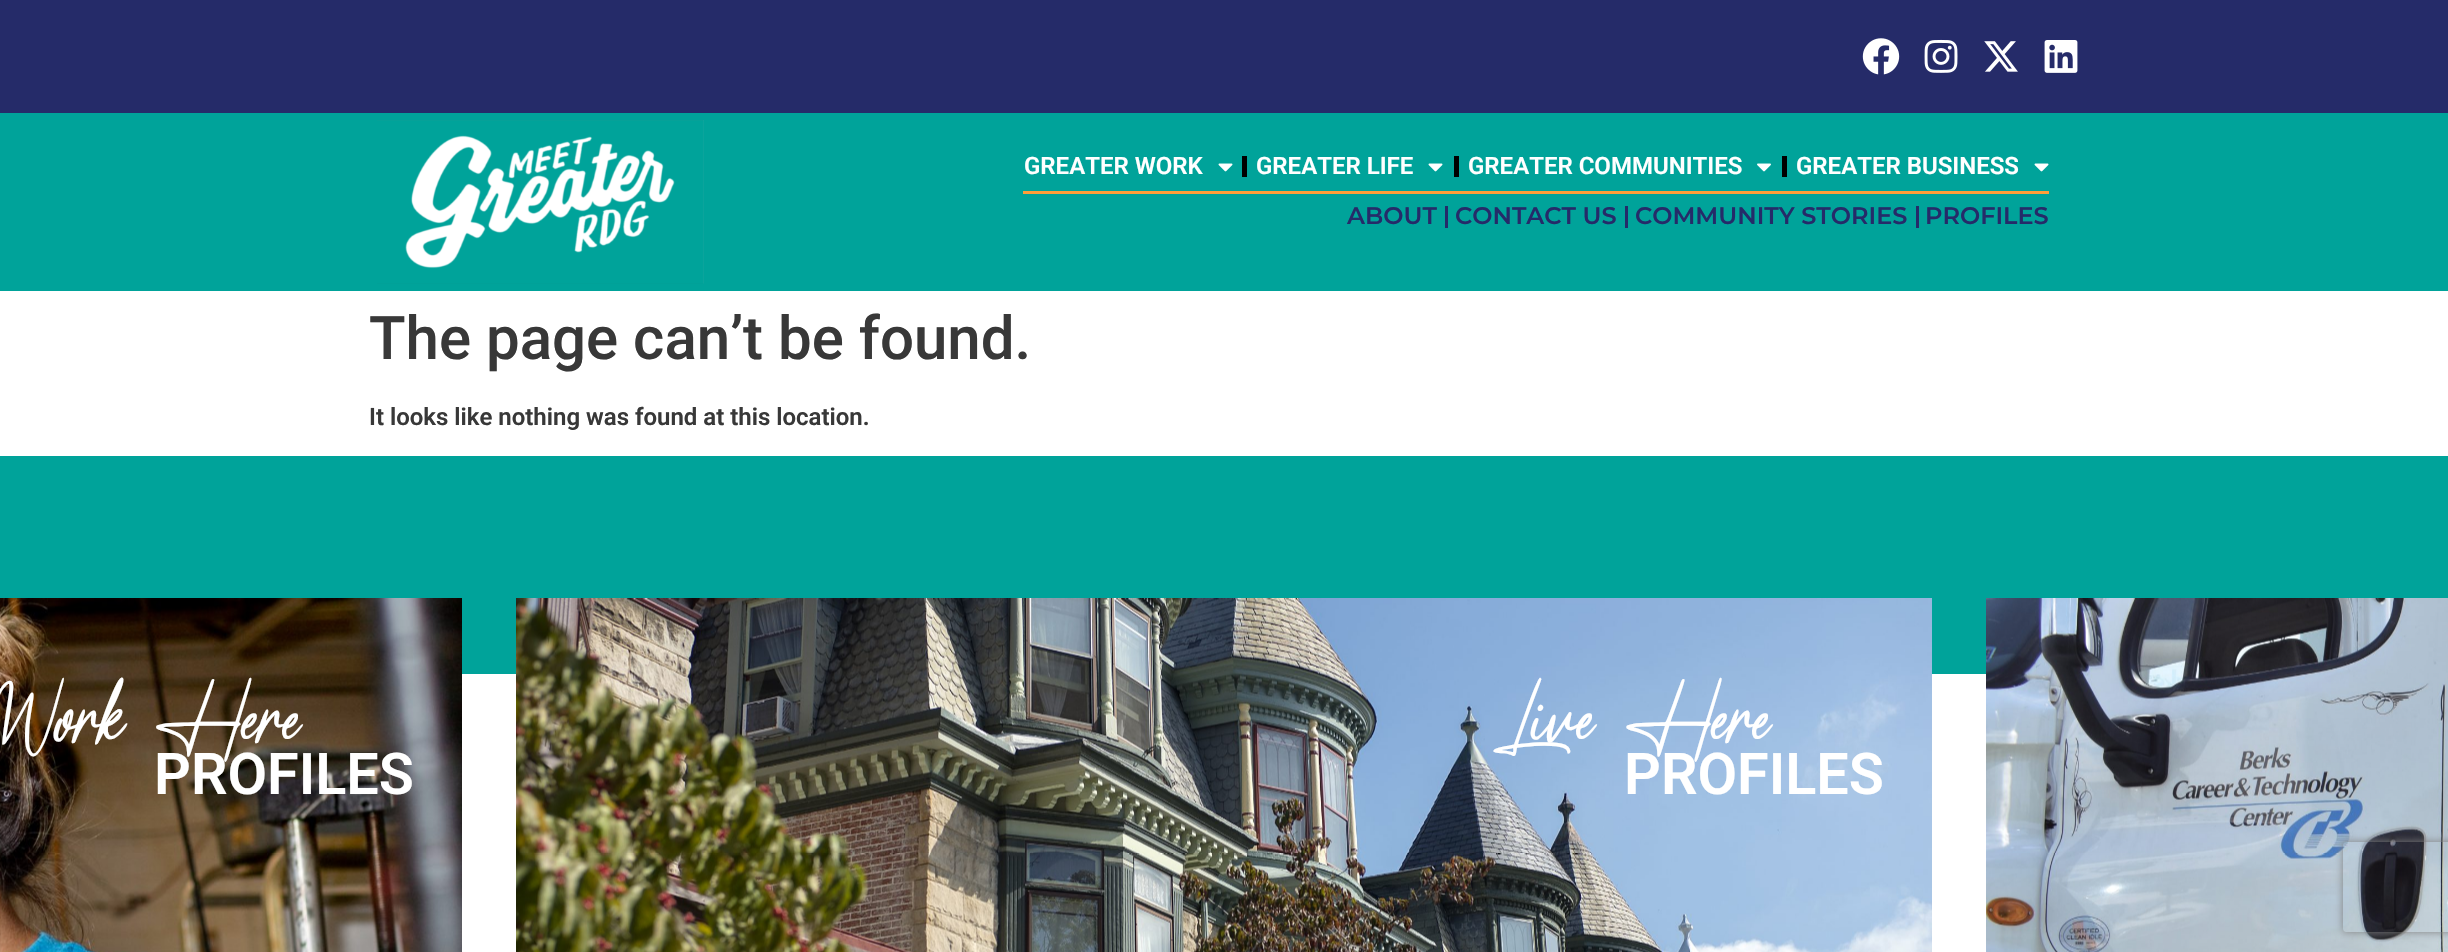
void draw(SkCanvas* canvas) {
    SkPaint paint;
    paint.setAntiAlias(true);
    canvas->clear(0xFFFFFFFF);
    paint.setColor(0xFF252B69);
    canvas->drawRect(SkRect::MakeXYWH(0, 0, 2448, 113), paint);
    canvas->drawImageRect(SkImages::DeferredFromEncodedData(SkData::MakeFromFileName("img1.png")), SkRect::MakeXYWH(1862, 38, 38, 37), SkSamplingOptions());
    canvas->drawImageRect(SkImages::DeferredFromEncodedData(SkData::MakeFromFileName("img2.png")), SkRect::MakeXYWH(1924, 39, 34, 34), SkSamplingOptions());
    canvas->drawImageRect(SkImages::DeferredFromEncodedData(SkData::MakeFromFileName("img3.png")), SkRect::MakeXYWH(1984, 41, 34, 31), SkSamplingOptions());
    canvas->drawImageRect(SkImages::DeferredFromEncodedData(SkData::MakeFromFileName("img4.png")), SkRect::MakeXYWH(2044, 40, 34, 33), SkSamplingOptions());
    paint.setColor(0xFF00A39A);
    canvas->drawRect(SkRect::MakeXYWH(0, 113, 2448, 178), paint);
    canvas->drawImageRect(SkImages::DeferredFromEncodedData(SkData::MakeFromFileName("img5.png")), SkRect::MakeXYWH(377, 120, 327, 164), SkSamplingOptions());
    paint.setColor(0xFFFF9E39);
    canvas->drawRect(SkRect::MakeXYWH(1023, 191, 1026, 3), paint);
    SkFont font1(fontMgr->matchFamilyStyle("Roboto", SkFontStyle(600, SkFontStyle::kNormal_Width, SkFontStyle::kUpright_Slant)), 24);
    font1.setSubpixel(true);
    paint.setColor(0xFFFFFFFF);
    canvas->drawString("GREATER WORK", 1024, 174, font1, paint);
    canvas->drawImageRect(SkImages::DeferredFromEncodedData(SkData::MakeFromFileName("img6.png")), SkRect::MakeXYWH(1218, 163, 15, 9), SkSamplingOptions());
    paint.setColor(0xFF000000);
    canvas->drawRect(SkRect::MakeXYWH(1242, 156, 5, 21), paint);
    paint.setColor(0xFFFFFFFF);
    canvas->drawString("GREATER LIFE", 1256, 174, font1, paint);
    canvas->drawImageRect(SkImages::DeferredFromEncodedData(SkData::MakeFromFileName("img6.png")), SkRect::MakeXYWH(1428, 163, 15, 9), SkSamplingOptions());
    paint.setColor(0xFF000000);
    canvas->drawRect(SkRect::MakeXYWH(1454, 156, 5, 21), paint);
    paint.setColor(0xFFFFFFFF);
    canvas->drawString("GREATER COMMUNITIES", 1468, 174, font1, paint);
    canvas->drawImageRect(SkImages::DeferredFromEncodedData(SkData::MakeFromFileName("img7.png")), SkRect::MakeXYWH(1757, 163, 14, 9), SkSamplingOptions());
    paint.setColor(0xFF000000);
    canvas->drawRect(SkRect::MakeXYWH(1782, 156, 5, 21), paint);
    paint.setColor(0xFFFFFFFF);
    canvas->drawString("GREATER BUSINESS", 1796, 174, font1, paint);
    canvas->drawImageRect(SkImages::DeferredFromEncodedData(SkData::MakeFromFileName("img6.png")), SkRect::MakeXYWH(2034, 163, 15, 9), SkSamplingOptions());
    SkFont font2(fontMgr->matchFamilyStyle("Montserrat", SkFontStyle(600, SkFontStyle::kNormal_Width, SkFontStyle::kUpright_Slant)), 24);
    font2.setSubpixel(true);
    paint.setColor(0xFF252B69);
    canvas->drawString("ABOUT", 1347, 224, font2, paint);
    canvas->drawRect(SkRect::MakeXYWH(1445, 206, 3, 22), paint);
    canvas->drawString("CONTACT US", 1455, 224, font2, paint);
    canvas->drawRect(SkRect::MakeXYWH(1625, 206, 3, 22), paint);
    canvas->drawString("COMMUNITY STORIES", 1635, 224, font2, paint);
    canvas->drawRect(SkRect::MakeXYWH(1916, 206, 3, 22), paint);
    canvas->drawString("PROFILES", 1925, 224, font2, paint);
    SkFont font3(fontMgr->matchFamilyStyle("Roboto", SkFontStyle(500, SkFontStyle::kNormal_Width, SkFontStyle::kUpright_Slant)), 60);
    font3.setSubpixel(true);
    paint.setColor(0xFF383838);
    canvas->drawString("The page can’t be found.", 369, 359, font3, paint);
    canvas->drawString("It looks like nothing was found at this location.", 369, 425, font1, paint);
    paint.setColor(0xFF00A39A);
    canvas->drawRect(SkRect::MakeXYWH(0, 456, 2448, 218), paint);
    canvas->drawImageRect(SkImages::DeferredFromEncodedData(SkData::MakeFromFileName("img8.png")), SkRect::MakeXYWH(0, 598, 462, 354), SkSamplingOptions());
    SkFont font4(fontMgr->matchFamilyStyle("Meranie", SkFontStyle::Normal()), 96);
    font4.setSubpixel(true);
    paint.setColor(0xFFFFFFFF);
    canvas->drawString("Work Here", -6, 745, font4, paint);
    SkFont font5(fontMgr->matchFamilyStyle("Roboto", SkFontStyle(600, SkFontStyle::kNormal_Width, SkFontStyle::kUpright_Slant)), 57.5f);
    font5.setSubpixel(true);
    canvas->drawString("PROFILES", 154, 794, font5, paint);
    canvas->drawImageRect(SkImages::DeferredFromEncodedData(SkData::MakeFromFileName("img9.png")), SkRect::MakeXYWH(516, 598, 1416, 354), SkSamplingOptions());
    canvas->drawString("Live Here", 1493, 745, font4, paint);
    canvas->drawString("PROFILES", 1624, 794, font5, paint);
    canvas->drawImageRect(SkImages::DeferredFromEncodedData(SkData::MakeFromFileName("img10.png")), SkRect::MakeXYWH(1986, 598, 462, 354), SkSamplingOptions());
    canvas->save();
    canvas->clipPath(SkPathBuilder(SkPathFillType::kEvenOdd).moveTo(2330, 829).lineTo(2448, 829).lineTo(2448, 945).lineTo(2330, 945).close().moveTo(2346, 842).lineTo(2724, 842).cubicTo(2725.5f, 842, 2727, 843.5f, 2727, 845).lineTo(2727, 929).cubicTo(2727, 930.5f, 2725.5f, 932, 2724, 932).lineTo(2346, 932).cubicTo(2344.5f, 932, 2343, 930.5f, 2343, 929).lineTo(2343, 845).cubicTo(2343, 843.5f, 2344.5f, 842, 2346, 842).close().detach(), true);
    paint.setColor(0xFF808080);
    paint.setMaskFilter(SkMaskFilter::MakeBlur(kNormal_SkBlurStyle, 4));
    canvas->drawRoundRect(SkRect::MakeXYWH(2343, 842, 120, 90), 3, 3, paint);
    paint.setMaskFilter(nullptr);
    canvas->restore();
}
